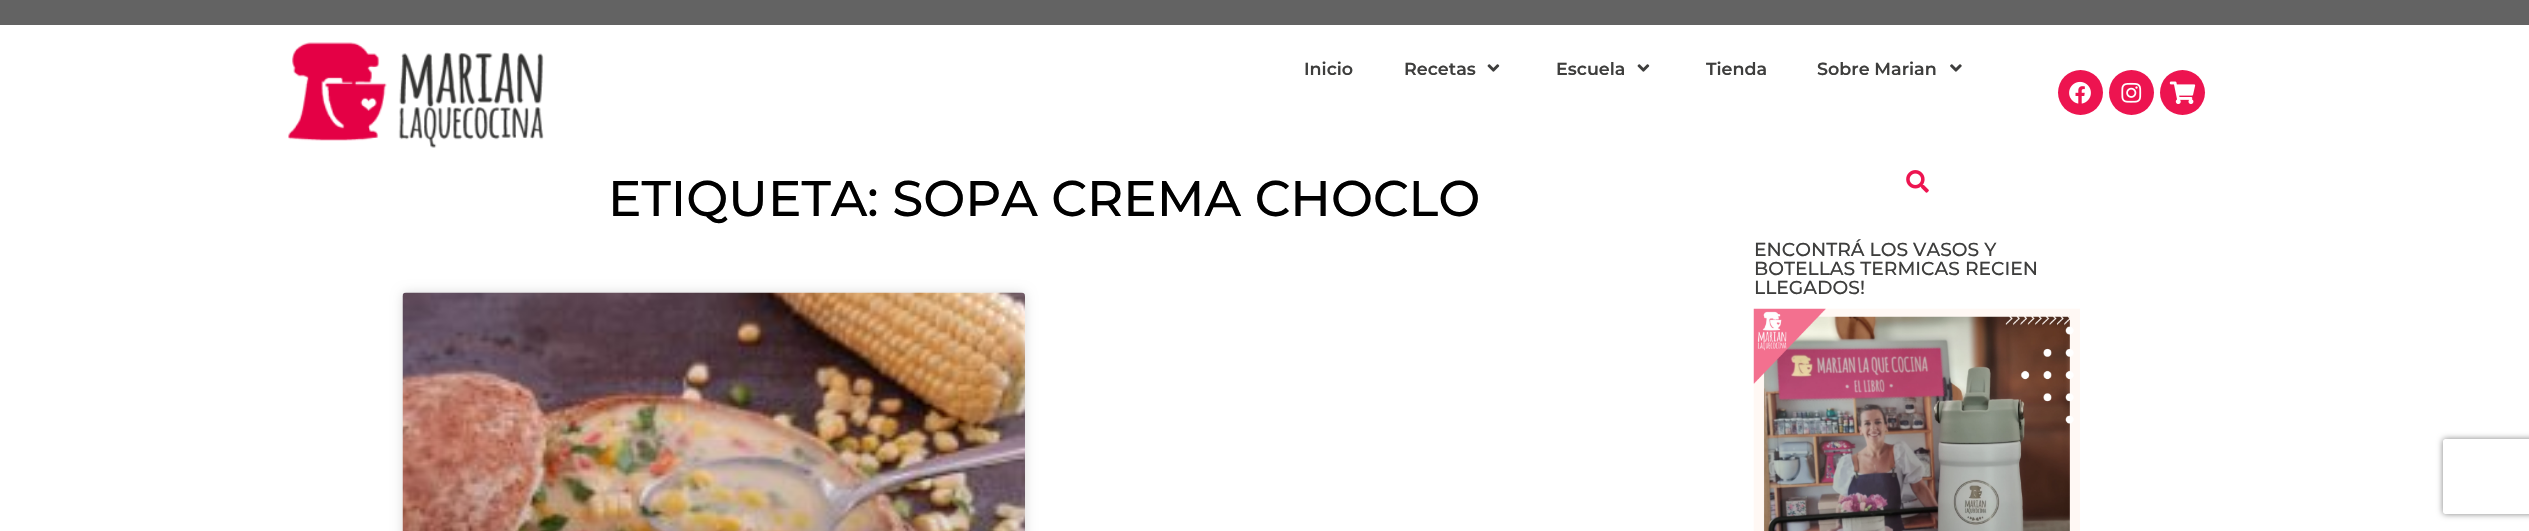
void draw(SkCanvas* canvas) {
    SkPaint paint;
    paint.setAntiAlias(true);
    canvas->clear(0xFFFFFFFF);
    paint.setColor(0xFF636363);
    canvas->drawRect(SkRect::MakeXYWH(0, 0, 2529, 25), paint);
    canvas->drawImageRect(SkImages::DeferredFromEncodedData(SkData::MakeFromFileName("img1.png")), SkRect::MakeXYWH(288, 42, 256, 106), SkSamplingOptions());
    SkFont font1(fontMgr->matchFamilyStyle("Montserrat", SkFontStyle(600, SkFontStyle::kNormal_Width, SkFontStyle::kUpright_Slant)), 17.5f);
    font1.setSubpixel(true);
    paint.setColor(0xFF3E3E3D);
    canvas->drawString("Inicio", 1304, 75, font1, paint);
    canvas->drawString("Recetas", 1404, 75, font1, paint);
    canvas->drawImageRect(SkImages::DeferredFromEncodedData(SkData::MakeFromFileName("img2.png")), SkRect::MakeXYWH(1487, 64, 13, 8), SkSamplingOptions());
    canvas->drawString("Escuela", 1556, 75, font1, paint);
    canvas->drawImageRect(SkImages::DeferredFromEncodedData(SkData::MakeFromFileName("img2.png")), SkRect::MakeXYWH(1637, 64, 13, 8), SkSamplingOptions());
    canvas->drawString("Tienda", 1706, 75, font1, paint);
    canvas->drawString("Sobre Marian", 1817, 75, font1, paint);
    canvas->drawImageRect(SkImages::DeferredFromEncodedData(SkData::MakeFromFileName("img3.png")), SkRect::MakeXYWH(1950, 64, 12, 8), SkSamplingOptions());
    paint.setColor(0xFFED1450);
    canvas->drawCircle(2080.5f, 92.5f, 22.5f, paint);
    canvas->drawImageRect(SkImages::DeferredFromEncodedData(SkData::MakeFromFileName("img4.png")), SkRect::MakeXYWH(2069, 81, 22, 23), SkSamplingOptions());
    canvas->drawCircle(2131.5f, 92.5f, 22.5f, paint);
    canvas->drawImageRect(SkImages::DeferredFromEncodedData(SkData::MakeFromFileName("img5.png")), SkRect::MakeXYWH(2121, 82, 21, 21), SkSamplingOptions());
    canvas->drawCircle(2182.5f, 92.5f, 22.5f, paint);
    canvas->drawImageRect(SkImages::DeferredFromEncodedData(SkData::MakeFromFileName("img6.png")), SkRect::MakeXYWH(2169, 81, 27, 23), SkSamplingOptions());
    SkFont font2(fontMgr->matchFamilyStyle("Montserrat", SkFontStyle(500, SkFontStyle::kNormal_Width, SkFontStyle::kUpright_Slant)), 50);
    font2.setSubpixel(true);
    paint.setColor(0xFF000000);
    canvas->drawString("ETIQUETA: SOPA CREMA CHOCLO", 608, 216, font2, paint);
    paint.setColor(0x26000000);
    paint.setMaskFilter(SkMaskFilter::MakeBlur(kNormal_SkBlurStyle, 6));
    canvas->drawRoundRect(SkRect::MakeXYWH(403, 293, 622, 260), 4, 4, paint);
    paint.setMaskFilter(nullptr);
    canvas->drawImageRect(SkImages::DeferredFromEncodedData(SkData::MakeFromFileName("img7.png")), SkRect::MakeXYWH(402, 292, 623, 239), SkSamplingOptions());
    {
        const SkColor colors[] = {0x59000000, 0x00000000};
        const float stops[] = {0, 0.75f};
        const SkPoint ends[] = {{714, 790}, {714, 293}};
        paint.setShader(SkGradientShader::MakeLinear(ends, colors, stops, 2, SkTileMode::kClamp));
        paint.setAlpha(255);
    }
    canvas->drawRect(SkRect::MakeXYWH(403, 440, 622, 91), paint);
    canvas->drawImageRect(SkImages::DeferredFromEncodedData(SkData::MakeFromFileName("img8.png")), SkRect::MakeXYWH(1906, 170, 23, 23), SkSamplingOptions());
    SkFont font3(fontMgr->matchFamilyStyle("Montserrat", SkFontStyle(500, SkFontStyle::kNormal_Width, SkFontStyle::kUpright_Slant)), 18.75f);
    font3.setSubpixel(true);
    paint.setShader(nullptr);
    paint.setColor(0xFF3E3E3D);
    canvas->drawString("ENCONTRÁ LOS VASOS Y", 1754, 256, font3, paint);
    canvas->drawString("BOTELLAS TERMICAS RECIEN", 1754, 275, font3, paint);
    canvas->drawString("LLEGADOS!", 1754, 294, font3, paint);
    canvas->drawImageRect(SkImages::DeferredFromEncodedData(SkData::MakeFromFileName("img9.png")), SkRect::MakeXYWH(1753, 308, 327, 223), SkSamplingOptions());
    canvas->save();
    canvas->clipPath(SkPathBuilder(SkPathFillType::kEvenOdd).moveTo(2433, 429).lineTo(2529, 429).lineTo(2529, 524).lineTo(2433, 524).close().moveTo(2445.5f, 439).lineTo(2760.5f, 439).cubicTo(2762, 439, 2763, 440, 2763, 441.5f).lineTo(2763, 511.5f).cubicTo(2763, 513, 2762, 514, 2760.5f, 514).lineTo(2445.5f, 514).cubicTo(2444, 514, 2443, 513, 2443, 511.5f).lineTo(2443, 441.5f).cubicTo(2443, 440, 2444, 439, 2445.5f, 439).close().detach(), true);
    paint.setColor(0xFF808080);
    paint.setMaskFilter(SkMaskFilter::MakeBlur(kNormal_SkBlurStyle, 3));
    canvas->drawRoundRect(SkRect::MakeXYWH(2443, 439, 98, 75), 2.5f, 2.5f, paint);
    paint.setMaskFilter(nullptr);
    canvas->restore();
}
